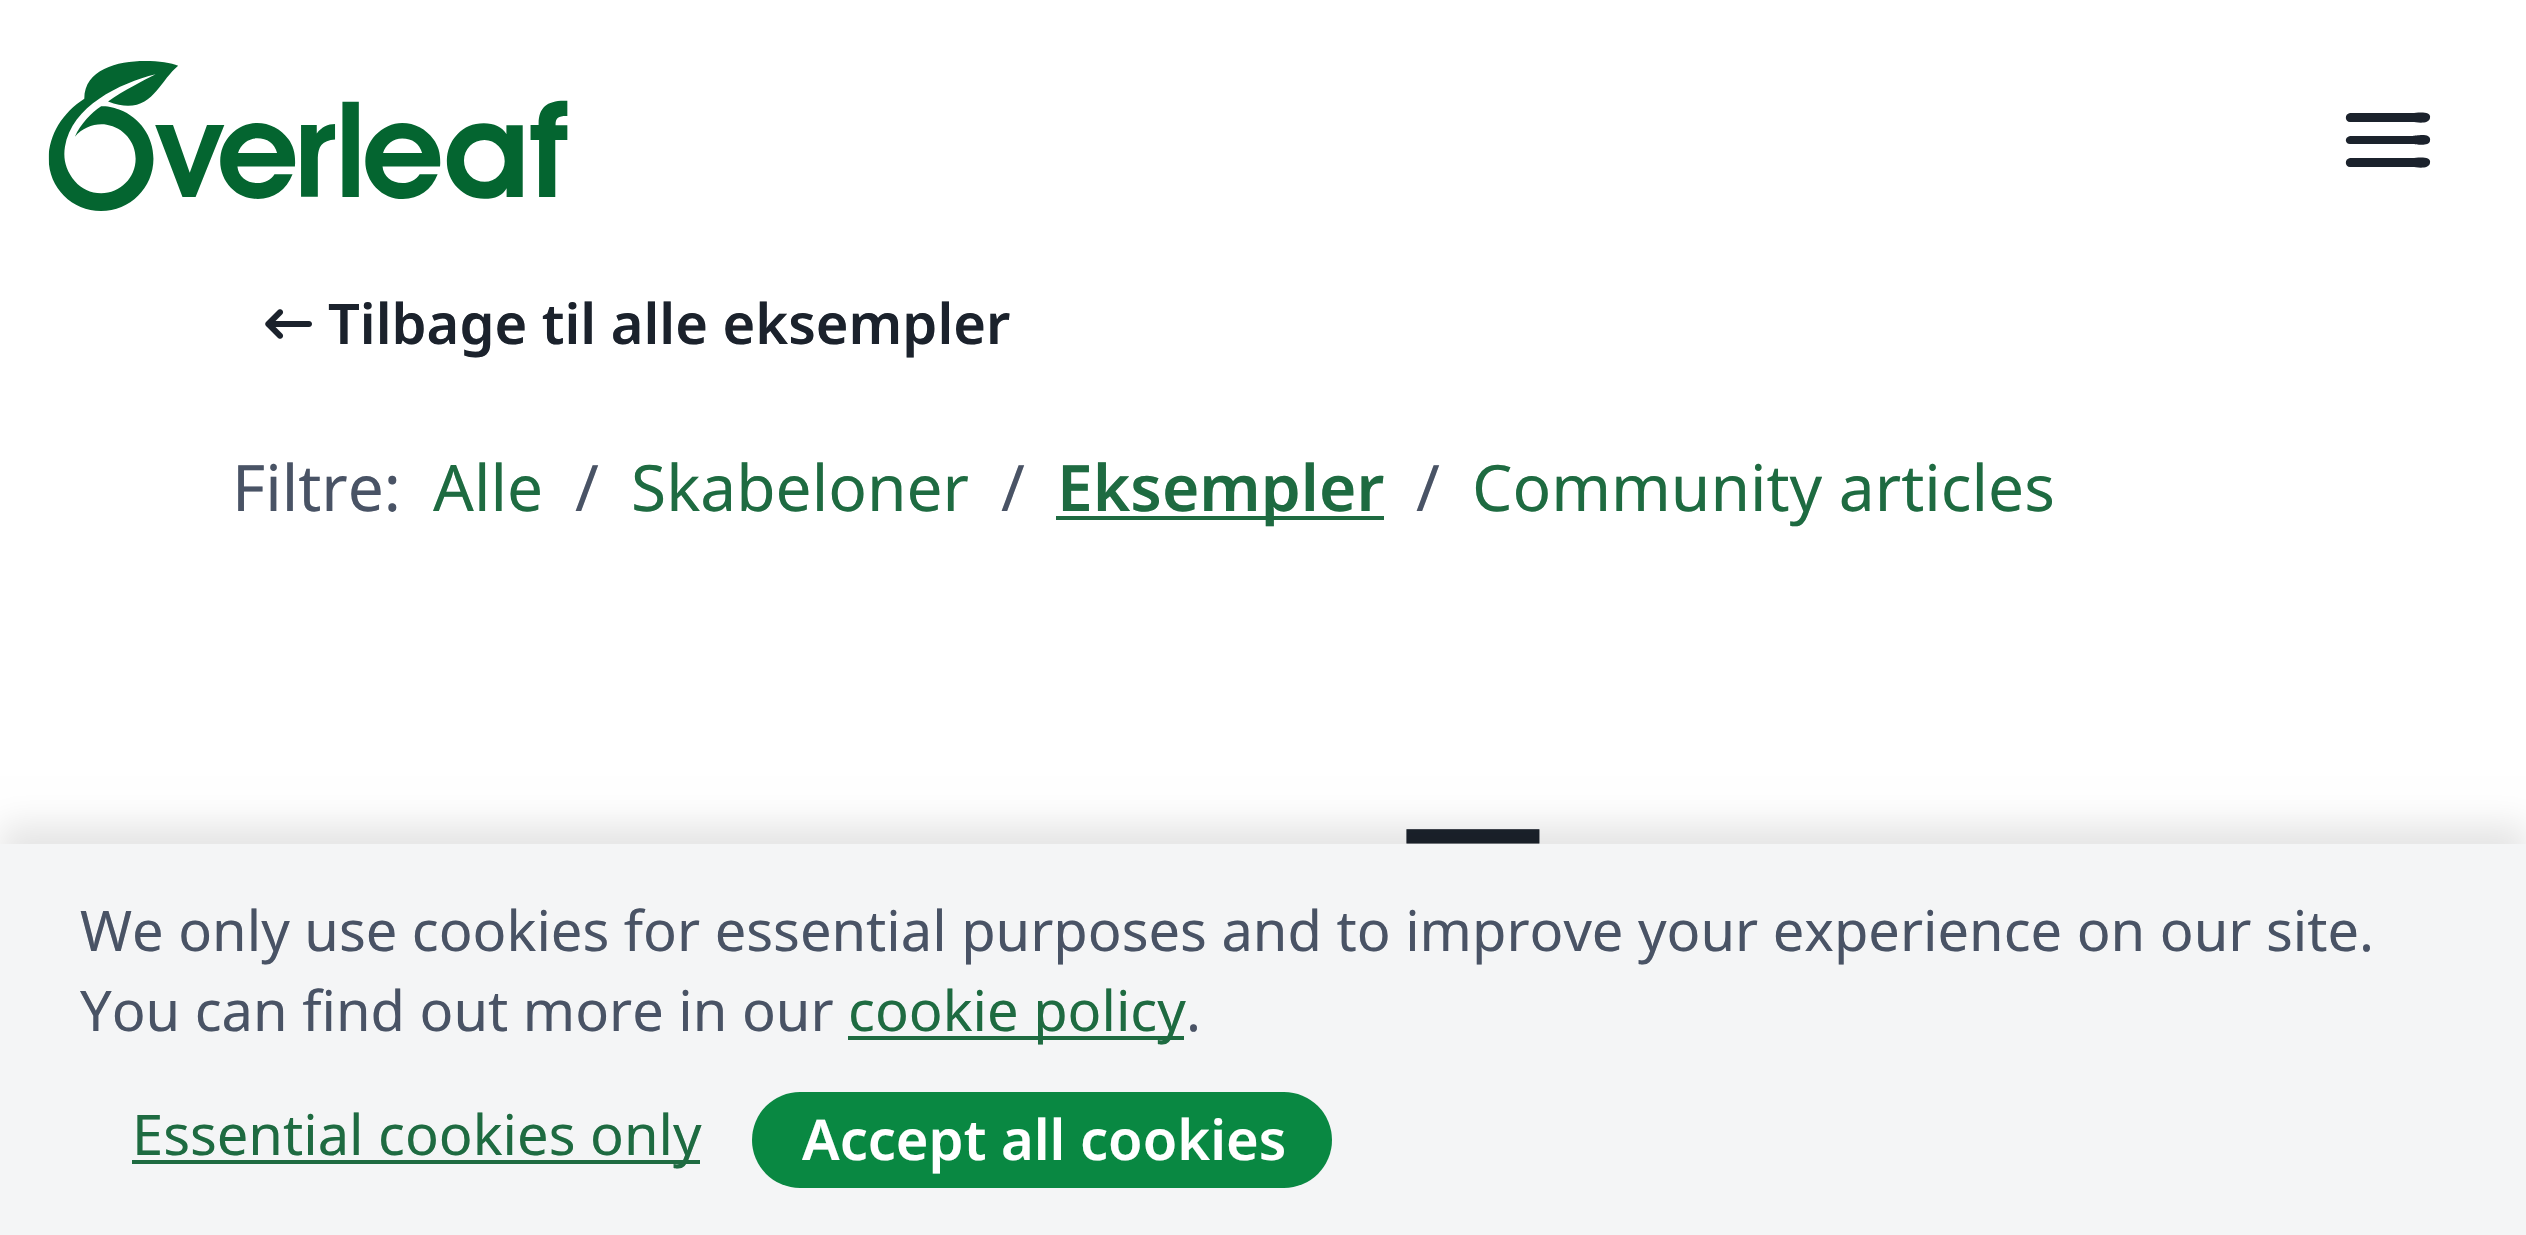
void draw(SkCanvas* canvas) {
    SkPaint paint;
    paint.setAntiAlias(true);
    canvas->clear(0xFFFFFFFF);
    canvas->drawImageRect(SkImages::DeferredFromEncodedData(SkData::MakeFromFileName("img1.png")), SkRect::MakeXYWH(48, 61, 520, 150), SkSamplingOptions());
    paint.setColor(0xFF1B222C);
    canvas->drawPath(SkPathBuilder().moveTo(2350, 167).cubicTo(2345, 167, 2344, 159, 2350, 158).lineTo(2413, 158).cubicTo(2415, 158, 2432, 155, 2430, 163).cubicTo(2429, 170, 2415, 167, 2413, 167).close().moveTo(2350, 144).cubicTo(2345, 144, 2344, 137, 2350, 136).lineTo(2413, 136).cubicTo(2415, 136, 2432, 132, 2430, 141).cubicTo(2429, 147, 2415, 144, 2413, 144).close().moveTo(2350, 122).cubicTo(2345, 122, 2344, 114, 2350, 113).lineTo(2413, 113).cubicTo(2415, 113, 2432, 110, 2430, 118).cubicTo(2429, 125, 2415, 122, 2413, 122).close().detach(), paint);
    canvas->drawImageRect(SkImages::DeferredFromEncodedData(SkData::MakeFromFileName("img2.png")), SkRect::MakeXYWH(265, 309, 47, 30), SkSamplingOptions());
    SkFont font1(fontMgr->matchFamilyStyle("Noto Sans", SkFontStyle(600, SkFontStyle::kNormal_Width, SkFontStyle::kUpright_Slant)), 56);
    font1.setSubpixel(true);
    canvas->drawString("Tilbage til alle eksempler", 328, 344, font1, paint);
    SkFont font2(fontMgr->matchFamilyStyle("Noto Sans", SkFontStyle::Normal()), 64);
    font2.setSubpixel(true);
    paint.setColor(0xFF495365);
    canvas->drawString("Filtre:", 232, 511, font2, paint);
    paint.setColor(0xFF1E6B41);
    canvas->drawString("Alle", 433, 511, font2, paint);
    paint.setColor(0xFF495365);
    canvas->drawString("/", 575, 511, font2, paint);
    paint.setColor(0xFF1E6B41);
    canvas->drawString("Skabeloner", 631, 511, font2, paint);
    paint.setColor(0xFF495365);
    canvas->drawString("/", 1001, 511, font2, paint);
    paint.setColor(0xFF1E6B41);
    canvas->drawRect(SkRect::MakeXYWH(1056, 516, 328, 4), paint);
    SkFont font3(fontMgr->matchFamilyStyle("Noto Sans", SkFontStyle(600, SkFontStyle::kNormal_Width, SkFontStyle::kUpright_Slant)), 64);
    font3.setSubpixel(true);
    canvas->drawString("Eksempler", 1057, 511, font3, paint);
    paint.setColor(0xFF495365);
    canvas->drawString("/", 1416, 511, font2, paint);
    paint.setColor(0xFF1E6B41);
    canvas->drawString("Community articles", 1472, 511, font2, paint);
    SkFont font4(fontMgr->matchFamilyStyle("Noto Sans", SkFontStyle(600, SkFontStyle::kNormal_Width, SkFontStyle::kUpright_Slant)), 144);
    font4.setSubpixel(true);
    paint.setColor(0xFF1B222C);
    canvas->drawString("—", 1401, 875, font4, paint);
    paint.setColor(0x1A000000);
    paint.setMaskFilter(SkMaskFilter::MakeBlur(kNormal_SkBlurStyle, 16));
    canvas->drawRect(SkRect::MakeXYWH(0, 824, 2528, 392), paint);
    paint.setMaskFilter(nullptr);
    paint.setColor(0xFFF4F5F6);
    canvas->drawRect(SkRect::MakeXYWH(0, 844, 2526, 391), paint);
    SkFont font5(fontMgr->matchFamilyStyle("Noto Sans", SkFontStyle::Normal()), 56);
    font5.setSubpixel(true);
    paint.setColor(0xFF495365);
    canvas->drawString("We only use cookies for essential purposes and to improve your experience on our site.", 80, 951, font5, paint);
    canvas->drawString("You can find out more in our", 80, 1031, font5, paint);
    paint.setColor(0xFF1E6B41);
    canvas->drawRect(SkRect::MakeXYWH(848, 1036, 336, 4), paint);
    canvas->drawString("cookie policy", 848, 1031, font5, paint);
    paint.setColor(0xFF495365);
    canvas->drawString(".", 1186, 1031, font5, paint);
    paint.setColor(0xFF1E6B41);
    canvas->drawRect(SkRect::MakeXYWH(132, 1160, 568, 4), paint);
    canvas->drawString("Essential cookies only", 132, 1155, font5, paint);
    paint.setColor(0xFF098842);
    canvas->drawRoundRect(SkRect::MakeXYWH(752, 1092, 580, 96), 48, 48, paint);
    paint.setColor(0xFFFFFFFF);
    canvas->drawString("Accept all cookies", 802, 1160, font1, paint);
}
